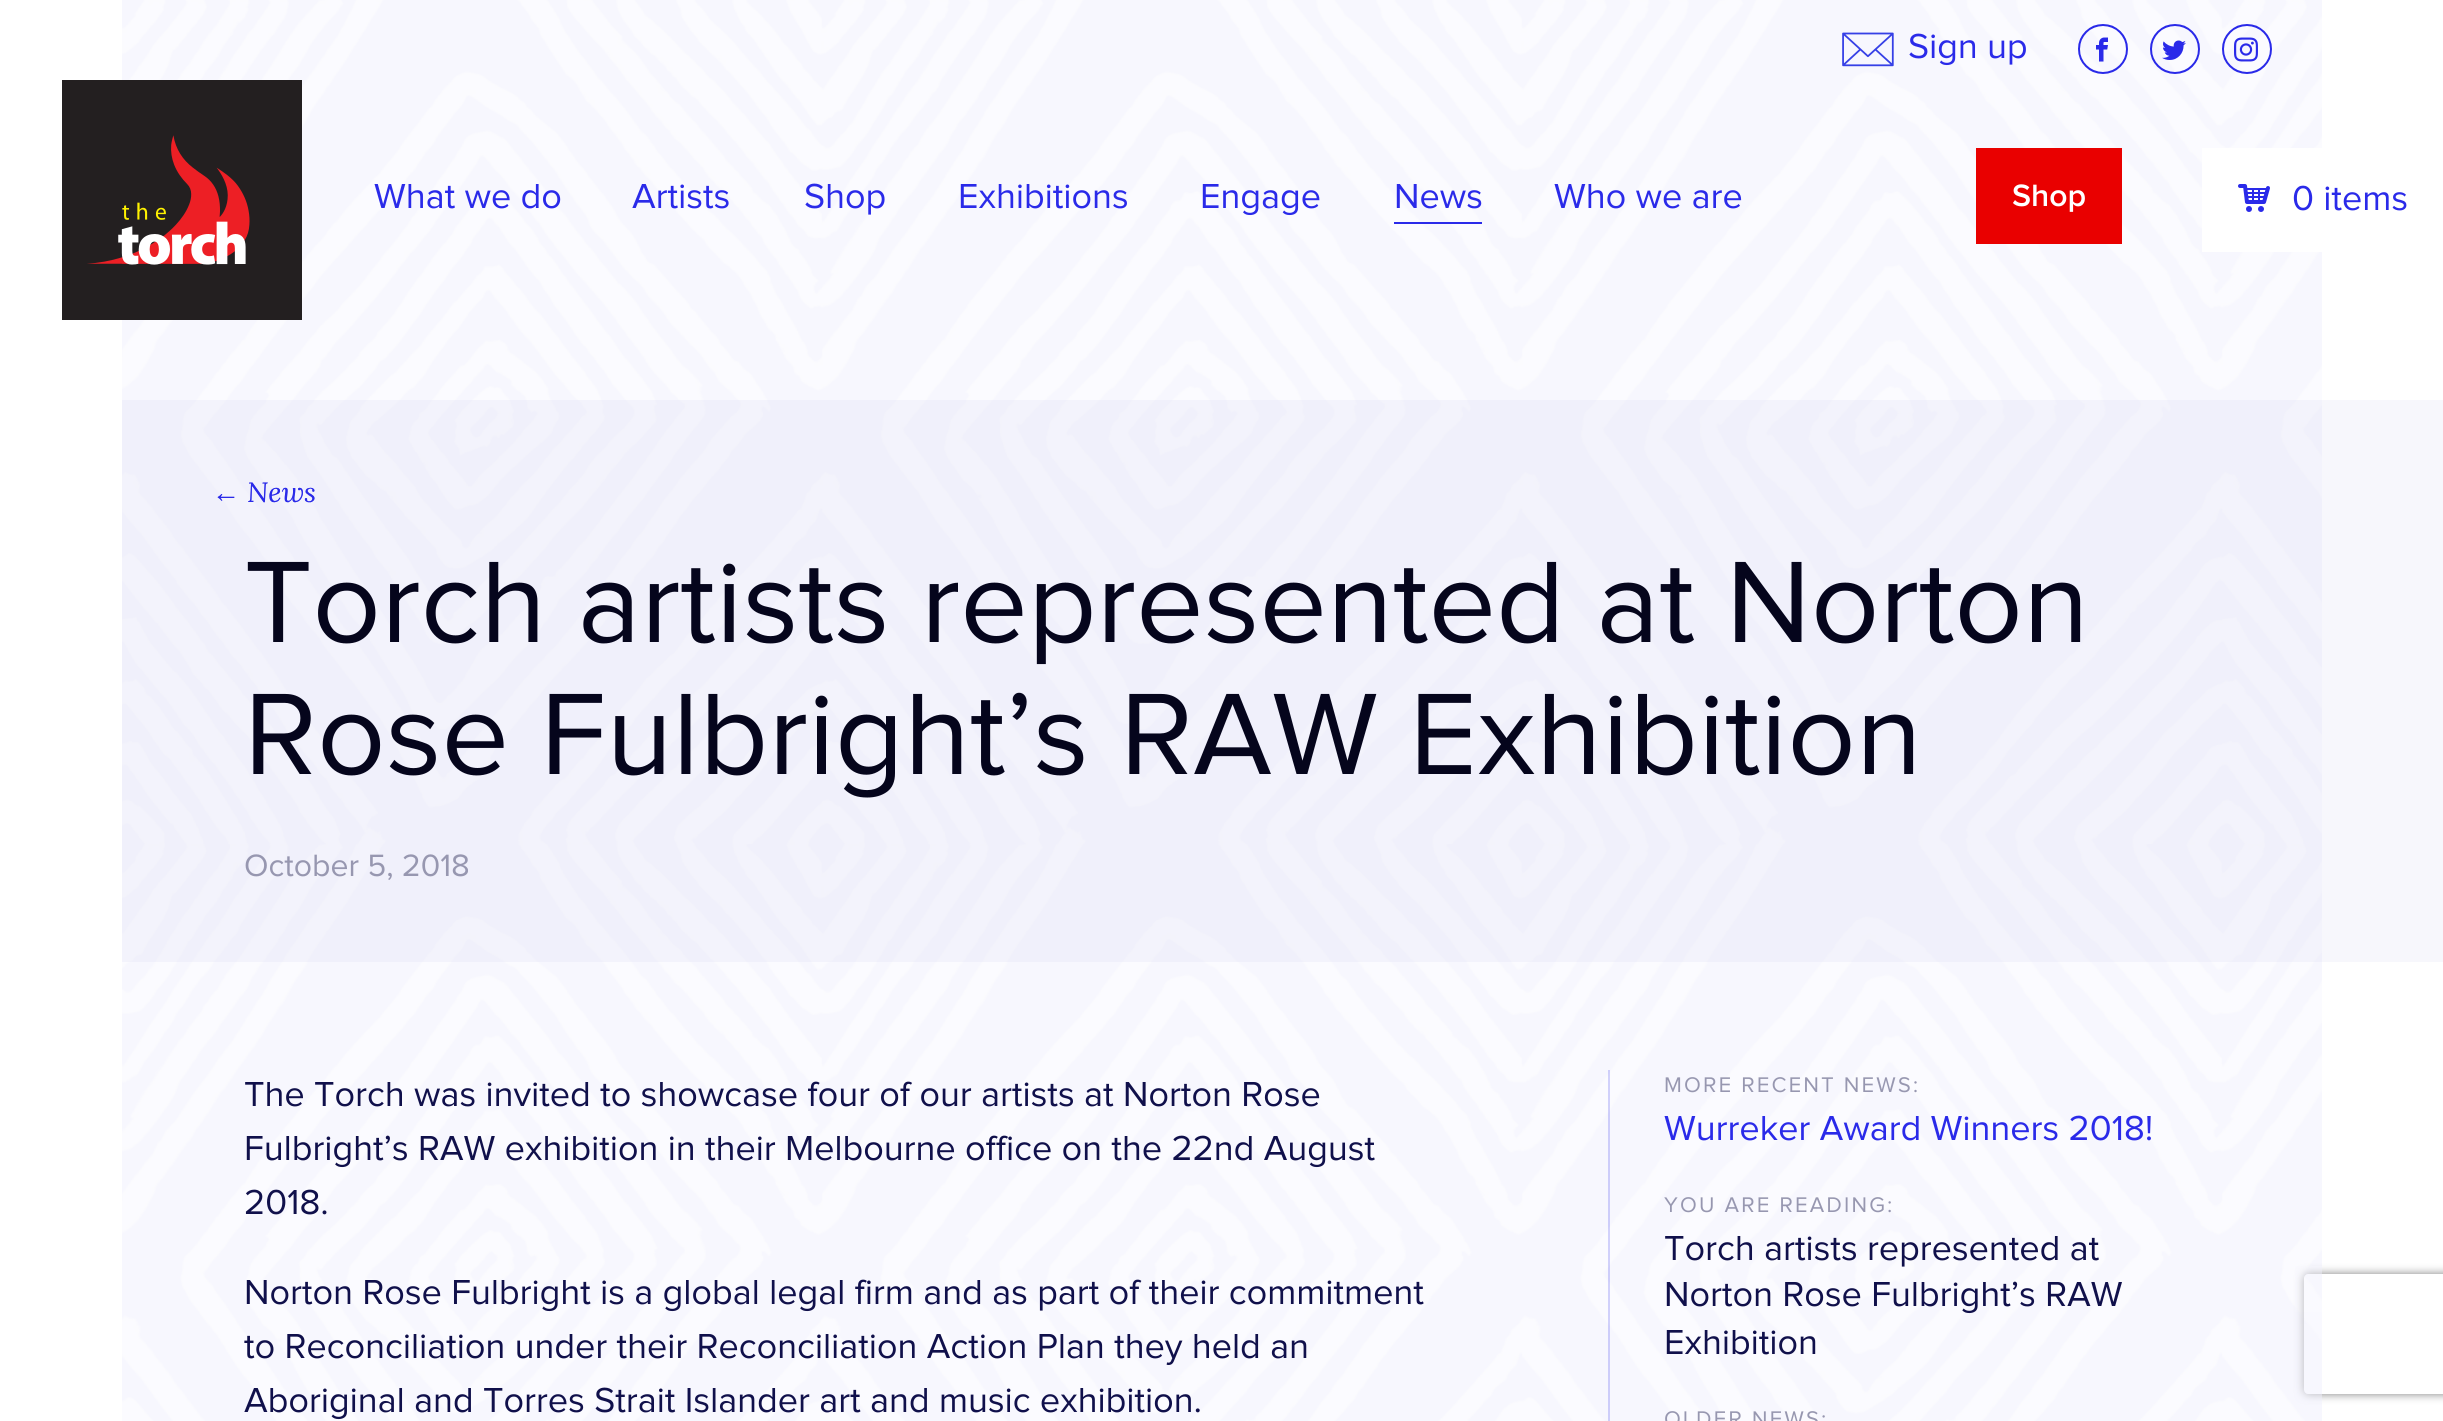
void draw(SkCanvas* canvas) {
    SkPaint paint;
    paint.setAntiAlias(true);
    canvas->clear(0xFFFFFFFF);
    paint.setColor(0xFFF7F7FE);
    canvas->drawRect(SkRect::MakeXYWH(122, 0, 2200, 1421), paint);
    canvas->drawImageRect(SkImages::DeferredFromEncodedData(SkData::MakeFromFileName("img1.png")), SkRect::MakeXYWH(122, 0, 2200, 1421), SkSamplingOptions());
    canvas->drawImageRect(SkImages::DeferredFromEncodedData(SkData::MakeFromFileName("img2.png")), SkRect::MakeXYWH(1842, 32, 52, 35), SkSamplingOptions());
    canvas->drawImageRect(SkImages::DeferredFromEncodedData(SkData::MakeFromFileName("img3.png")), SkRect::MakeXYWH(1909, 33, 117, 33), SkSamplingOptions());
    paint.setStyle(SkPaint::kStroke_Style);
    paint.setStrokeWidth(2);
    paint.setColor(0xFF2A2AE9);
    canvas->drawCircle(2103, 49, 24, paint);
    canvas->drawImageRect(SkImages::DeferredFromEncodedData(SkData::MakeFromFileName("img4.png")), SkRect::MakeXYWH(2096, 37, 12, 25), SkSamplingOptions());
    canvas->drawCircle(2175, 49, 24, paint);
    canvas->drawImageRect(SkImages::DeferredFromEncodedData(SkData::MakeFromFileName("img5.png")), SkRect::MakeXYWH(2162, 40, 24, 20), SkSamplingOptions());
    canvas->drawCircle(2247, 49, 24, paint);
    canvas->drawImageRect(SkImages::DeferredFromEncodedData(SkData::MakeFromFileName("img6.png")), SkRect::MakeXYWH(2234, 37, 24, 25), SkSamplingOptions());
    canvas->drawImageRect(SkImages::DeferredFromEncodedData(SkData::MakeFromFileName("img7.png")), SkRect::MakeXYWH(62, 80, 240, 240), SkSamplingOptions());
    canvas->drawImageRect(SkImages::DeferredFromEncodedData(SkData::MakeFromFileName("img8.png")), SkRect::MakeXYWH(374, 184, 187, 25), SkSamplingOptions());
    canvas->drawImageRect(SkImages::DeferredFromEncodedData(SkData::MakeFromFileName("img9.png")), SkRect::MakeXYWH(632, 184, 97, 25), SkSamplingOptions());
    canvas->drawImageRect(SkImages::DeferredFromEncodedData(SkData::MakeFromFileName("img10.png")), SkRect::MakeXYWH(805, 183, 80, 32), SkSamplingOptions());
    canvas->drawImageRect(SkImages::DeferredFromEncodedData(SkData::MakeFromFileName("img11.png")), SkRect::MakeXYWH(960, 184, 167, 25), SkSamplingOptions());
    canvas->drawImageRect(SkImages::DeferredFromEncodedData(SkData::MakeFromFileName("img12.png")), SkRect::MakeXYWH(1202, 184, 118, 32), SkSamplingOptions());
    paint.setStyle(SkPaint::kFill_Style);
    canvas->drawRect(SkRect::MakeXYWH(1394, 222, 88, 2), paint);
    canvas->drawImageRect(SkImages::DeferredFromEncodedData(SkData::MakeFromFileName("img13.png")), SkRect::MakeXYWH(1396, 184, 86, 25), SkSamplingOptions());
    canvas->drawImageRect(SkImages::DeferredFromEncodedData(SkData::MakeFromFileName("img14.png")), SkRect::MakeXYWH(1554, 184, 188, 25), SkSamplingOptions());
    paint.setColor(0xFFE90000);
    canvas->drawRect(SkRect::MakeXYWH(1976, 148, 146, 96), paint);
    canvas->drawImageRect(SkImages::DeferredFromEncodedData(SkData::MakeFromFileName("img15.png")), SkRect::MakeXYWH(2013, 184, 72, 28), SkSamplingOptions());
    paint.setColor(0xFFFFFFFF);
    canvas->drawRect(SkRect::MakeXYWH(2202, 148, 120, 104), paint);
    canvas->drawImageRect(SkImages::DeferredFromEncodedData(SkData::MakeFromFileName("img16.png")), SkRect::MakeXYWH(2238, 184, 32, 28), SkSamplingOptions());
    canvas->drawImageRect(SkImages::DeferredFromEncodedData(SkData::MakeFromFileName("img17.png")), SkRect::MakeXYWH(2293, 185, 20, 26), SkSamplingOptions());
    canvas->drawImageRect(SkImages::DeferredFromEncodedData(SkData::MakeFromFileName("img18.png")), SkRect::MakeXYWH(2325, 186, 82, 25), SkSamplingOptions());
    paint.setColor(0x1FBABAE8);
    canvas->drawRect(SkRect::MakeXYWH(122, 400, 2321, 562), paint);
    SkFont font1(fontMgr->matchFamilyStyle("Liberation Serif", SkFontStyle::Italic()), 28);
    font1.setSubpixel(true);
    paint.setColor(0xFF2A2AE9);
    canvas->drawString("←", 212, 502, font1, paint);
    SkFont font2(fontMgr->matchFamilyStyle("Lora", SkFontStyle::Italic()), 28);
    font2.setSubpixel(true);
    canvas->drawString("News", 247, 502, font2, paint);
    canvas->drawImageRect(SkImages::DeferredFromEncodedData(SkData::MakeFromFileName("img19.png")), SkRect::MakeXYWH(247, 561, 1834, 104), SkSamplingOptions());
    canvas->drawImageRect(SkImages::DeferredFromEncodedData(SkData::MakeFromFileName("img20.png")), SkRect::MakeXYWH(253, 692, 1661, 106), SkSamplingOptions());
    canvas->drawImageRect(SkImages::DeferredFromEncodedData(SkData::MakeFromFileName("img21.png")), SkRect::MakeXYWH(245, 854, 223, 26), SkSamplingOptions());
    canvas->drawImageRect(SkImages::DeferredFromEncodedData(SkData::MakeFromFileName("img22.png")), SkRect::MakeXYWH(245, 1081, 1075, 26), SkSamplingOptions());
    canvas->drawImageRect(SkImages::DeferredFromEncodedData(SkData::MakeFromFileName("img23.png")), SkRect::MakeXYWH(246, 1135, 1129, 33), SkSamplingOptions());
    canvas->drawImageRect(SkImages::DeferredFromEncodedData(SkData::MakeFromFileName("img24.png")), SkRect::MakeXYWH(245, 1189, 82, 26), SkSamplingOptions());
    canvas->drawImageRect(SkImages::DeferredFromEncodedData(SkData::MakeFromFileName("img25.png")), SkRect::MakeXYWH(246, 1279, 1178, 33), SkSamplingOptions());
    canvas->drawImageRect(SkImages::DeferredFromEncodedData(SkData::MakeFromFileName("img26.png")), SkRect::MakeXYWH(244, 1334, 1063, 31), SkSamplingOptions());
    canvas->drawImageRect(SkImages::DeferredFromEncodedData(SkData::MakeFromFileName("img27.png")), SkRect::MakeXYWH(244, 1387, 956, 33), SkSamplingOptions());
    paint.setColor(0x332A2AE9);
    canvas->drawRect(SkRect::MakeXYWH(1608, 1070, 2, 351), paint);
    canvas->drawImageRect(SkImages::DeferredFromEncodedData(SkData::MakeFromFileName("img28.png")), SkRect::MakeXYWH(1665, 1077, 252, 16), SkSamplingOptions());
    canvas->drawImageRect(SkImages::DeferredFromEncodedData(SkData::MakeFromFileName("img29.png")), SkRect::MakeXYWH(1664, 1115, 487, 26), SkSamplingOptions());
    canvas->drawImageRect(SkImages::DeferredFromEncodedData(SkData::MakeFromFileName("img30.png")), SkRect::MakeXYWH(1664, 1197, 227, 16), SkSamplingOptions());
    canvas->drawImageRect(SkImages::DeferredFromEncodedData(SkData::MakeFromFileName("img31.png")), SkRect::MakeXYWH(1665, 1236, 434, 31), SkSamplingOptions());
    canvas->drawImageRect(SkImages::DeferredFromEncodedData(SkData::MakeFromFileName("img32.png")), SkRect::MakeXYWH(1666, 1281, 456, 33), SkSamplingOptions());
    canvas->drawImageRect(SkImages::DeferredFromEncodedData(SkData::MakeFromFileName("img33.png")), SkRect::MakeXYWH(1666, 1330, 150, 25), SkSamplingOptions());
    canvas->drawImageRect(SkImages::DeferredFromEncodedData(SkData::MakeFromFileName("img34.png")), SkRect::MakeXYWH(1665, 1411, 160, 10), SkSamplingOptions());
    canvas->save();
    canvas->clipPath(SkPathBuilder(SkPathFillType::kEvenOdd).moveTo(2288, 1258).lineTo(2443, 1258).lineTo(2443, 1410).lineTo(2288, 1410).close().moveTo(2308, 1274).lineTo(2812, 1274).cubicTo(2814, 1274, 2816, 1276, 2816, 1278).lineTo(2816, 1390).cubicTo(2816, 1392, 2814, 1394, 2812, 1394).lineTo(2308, 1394).cubicTo(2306, 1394, 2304, 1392, 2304, 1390).lineTo(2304, 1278).cubicTo(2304, 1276, 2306, 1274, 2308, 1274).close().detach(), true);
    paint.setColor(0xFF808080);
    paint.setMaskFilter(SkMaskFilter::MakeBlur(kNormal_SkBlurStyle, 5));
    canvas->drawRoundRect(SkRect::MakeXYWH(2304, 1274, 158, 120), 4, 4, paint);
    paint.setMaskFilter(nullptr);
    canvas->restore();
    {
        const SkColor colors[] = {0x00F7F7FE, 0xFFF7F7FE};
        const float stops[] = {0, 1};
        const SkPoint ends[] = {{1222, 0}, {1222, 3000}};
        paint.setShader(SkGradientShader::MakeLinear(ends, colors, stops, 2, SkTileMode::kClamp));
        paint.setAlpha(255);
    }
    canvas->drawRect(SkRect::MakeXYWH(2295, 1266, 27, 137), paint);
}
